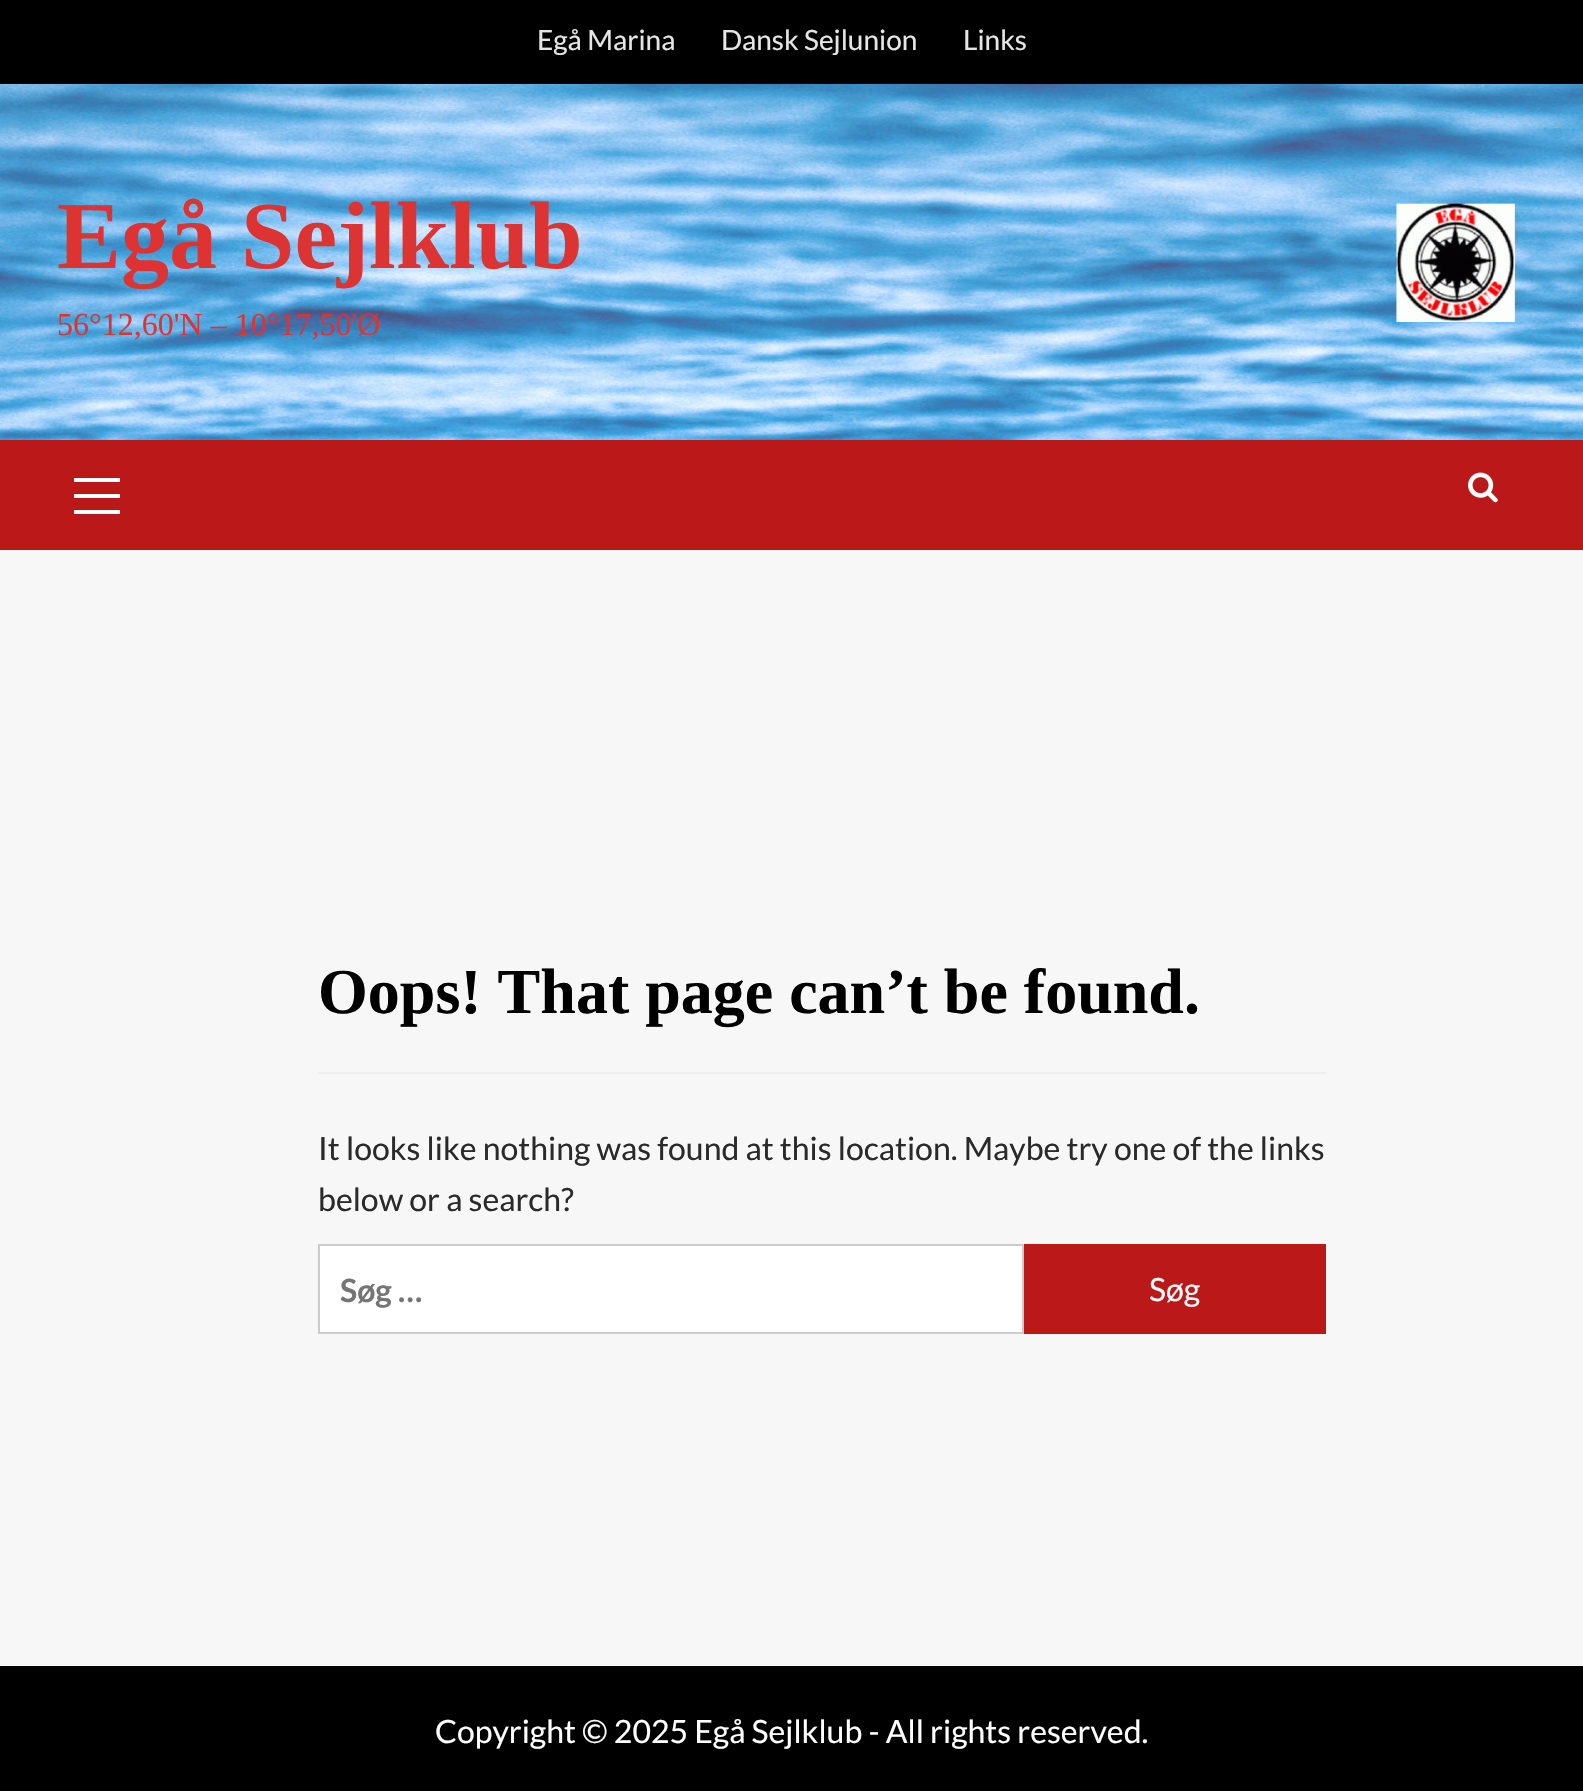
void draw(SkCanvas* canvas) {
    SkPaint paint;
    paint.setAntiAlias(true);
    canvas->clear(0xFFF7F7F7);
    paint.setColor(0xFF000000);
    canvas->drawRect(SkRect::MakeXYWH(0, 0, 1583, 84), paint);
    SkFont font1(fontMgr->matchFamilyStyle("Lato", SkFontStyle::Normal()), 28);
    font1.setSubpixel(true);
    paint.setColor(0xFFE6E6E6);
    canvas->drawString("Egå Marina", 537, 50, font1, paint);
    canvas->drawString("Dansk Sejlunion", 721, 50, font1, paint);
    canvas->drawString("Links", 963, 50, font1, paint);
    canvas->drawImageRect(SkImages::DeferredFromEncodedData(SkData::MakeFromFileName("img1.png")), SkRect::MakeXYWH(0, 84, 1583, 356), SkSamplingOptions());
    SkFont font2(fontMgr->matchFamilyStyle("Liberation Serif", SkFontStyle::Bold()), 96);
    font2.setSubpixel(true);
    paint.setColor(0xFFDD3333);
    canvas->drawString("Egå Sejlklub", 57, 268, font2, paint);
    SkFont font3(fontMgr->matchFamilyStyle("Liberation Serif", SkFontStyle::Normal()), 32);
    font3.setSubpixel(true);
    canvas->drawString("56°12,60'N – 10°17,50'Ø", 57, 335, font3, paint);
    paint.setColor(0xFFBB1919);
    canvas->drawRect(SkRect::MakeXYWH(0, 440, 1583, 110), paint);
    paint.setColor(0xFFFFFFFF);
    canvas->drawRect(SkRect::MakeXYWH(74, 494, 46, 4), paint);
    canvas->drawRect(SkRect::MakeXYWH(74, 478, 46, 4), paint);
    canvas->drawRect(SkRect::MakeXYWH(74, 510, 46, 4), paint);
    canvas->drawImageRect(SkImages::DeferredFromEncodedData(SkData::MakeFromFileName("img2.png")), SkRect::MakeXYWH(1468, 472, 30, 31), SkSamplingOptions());
    paint.setColor(0xFFEEEEEE);
    canvas->drawRect(SkRect::MakeXYWH(318, 1072, 1008, 2), paint);
    SkFont font4(fontMgr->matchFamilyStyle("Liberation Serif", SkFontStyle::Bold()), 64);
    font4.setSubpixel(true);
    paint.setColor(0xFF000000);
    canvas->drawString("Oops! That page can’t be found.", 318, 1013, font4, paint);
    SkFont font5(fontMgr->matchFamilyStyle("Lato", SkFontStyle::Normal()), 32);
    font5.setSubpixel(true);
    paint.setColor(0xFF2A2A2A);
    canvas->drawString("It looks like nothing was found at this location. Maybe try one of the links", 318, 1160, font5, paint);
    canvas->drawString("below or a search?", 318, 1211, font5, paint);
    paint.setColor(0xFFFFFFFF);
    canvas->drawRect(SkRect::MakeXYWH(319, 1245, 704, 88), paint);
    paint.setStyle(SkPaint::kStroke_Style);
    paint.setStrokeWidth(2);
    paint.setColor(0xFFCCCCCC);
    canvas->drawRect(SkRect::MakeXYWH(319, 1245, 704, 88), paint);
    SkFont font6(fontMgr->matchFamilyStyle("Lato", SkFontStyle::Bold()), 32);
    font6.setSubpixel(true);
    paint.setStyle(SkPaint::kFill_Style);
    paint.setColor(0xFF757575);
    canvas->drawString("Søg …", 340, 1302, font6, paint);
    paint.setColor(0xFFBB1919);
    canvas->drawRect(SkRect::MakeXYWH(1024, 1244, 302, 90), paint);
    paint.setColor(0xFFFFFFFF);
    canvas->drawString("Søg", 1149, 1301, font5, paint);
    paint.setColor(0xFF000000);
    canvas->drawRect(SkRect::MakeXYWH(0, 1666, 1583, 125), paint);
    paint.setColor(0xFFFFFFFF);
    canvas->drawString("Copyright © 2025 Egå Sejlklub - All rights reserved.", 435, 1743, font5, paint);
}
